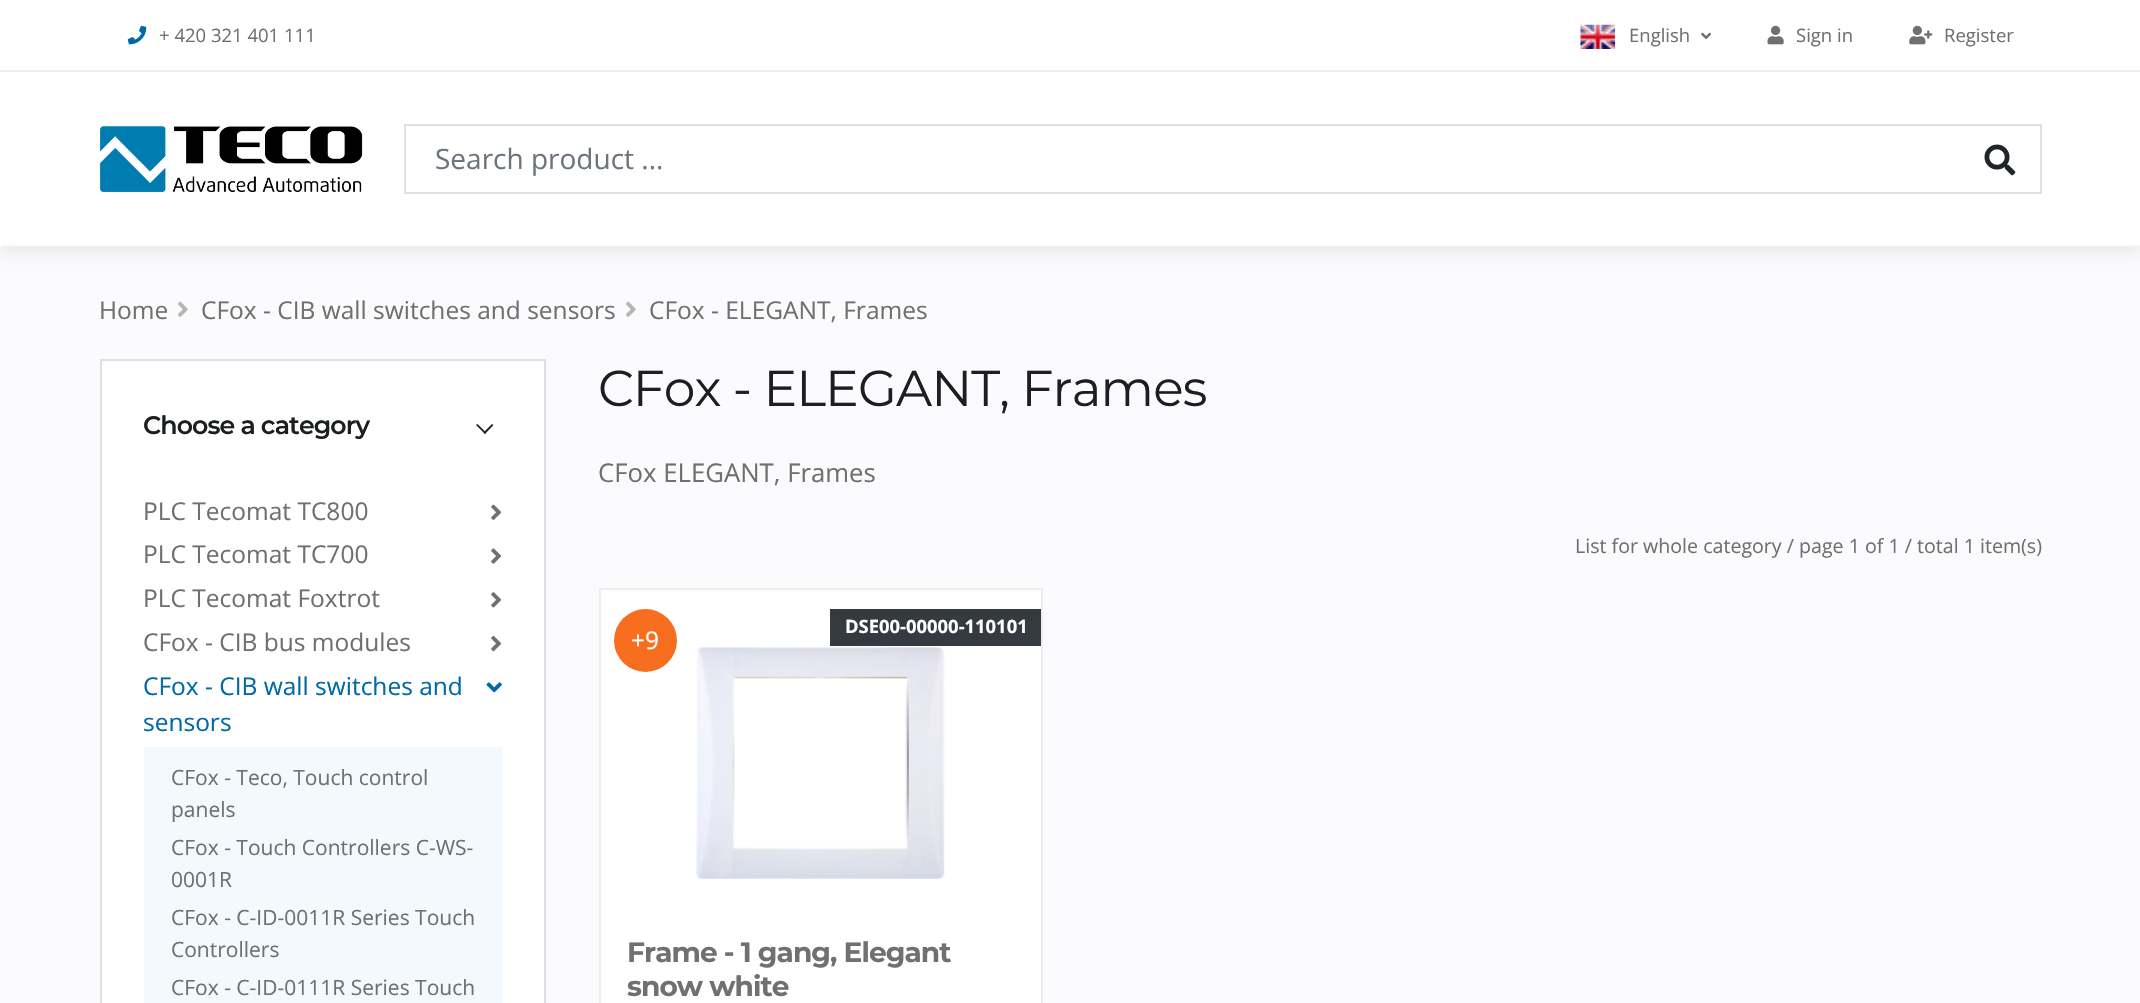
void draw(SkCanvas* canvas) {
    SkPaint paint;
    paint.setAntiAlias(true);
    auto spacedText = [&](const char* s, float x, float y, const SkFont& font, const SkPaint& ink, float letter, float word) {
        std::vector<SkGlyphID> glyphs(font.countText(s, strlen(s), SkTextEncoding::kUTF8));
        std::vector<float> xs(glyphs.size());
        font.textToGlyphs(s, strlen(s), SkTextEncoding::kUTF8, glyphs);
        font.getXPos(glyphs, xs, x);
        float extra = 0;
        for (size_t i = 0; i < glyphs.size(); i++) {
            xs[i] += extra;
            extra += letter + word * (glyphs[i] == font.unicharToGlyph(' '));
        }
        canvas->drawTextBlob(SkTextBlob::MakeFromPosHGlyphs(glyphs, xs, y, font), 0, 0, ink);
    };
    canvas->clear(0xFFFBFBFD);
    paint.setColor(0x1C000000);
    paint.setMaskFilter(SkMaskFilter::MakeBlur(kNormal_SkBlurStyle, 9));
    canvas->drawRect(SkRect::MakeXYWH(0, 2, 2140, 247), paint);
    paint.setMaskFilter(nullptr);
    paint.setColor(0xFFFFFFFF);
    canvas->drawRect(SkRect::MakeXYWH(0, 0, 2140, 247), paint);
    paint.setColor(0xFFEDEDEE);
    canvas->drawRect(SkRect::MakeXYWH(0, 70, 2140, 2), paint);
    canvas->drawImageRect(SkImages::DeferredFromEncodedData(SkData::MakeFromFileName("img1.png")), SkRect::MakeXYWH(127, 25, 20, 20), SkSamplingOptions());
    SkFont font1(fontMgr->matchFamilyStyle("Open Sans", SkFontStyle::Normal()), 18.5f);
    font1.setSubpixel(true);
    paint.setColor(0xFF707070);
    canvas->drawString("+ 420 321 401 111", 159, 42, font1, paint);
    canvas->drawImageRect(SkImages::DeferredFromEncodedData(SkData::MakeFromFileName("img2.png")), SkRect::MakeXYWH(1580, 24, 36, 25), SkSamplingOptions());
    canvas->drawString("English", 1629, 42, font1, paint);
    canvas->drawImageRect(SkImages::DeferredFromEncodedData(SkData::MakeFromFileName("img3.png")), SkRect::MakeXYWH(1701, 32, 11, 8), SkSamplingOptions());
    canvas->drawImageRect(SkImages::DeferredFromEncodedData(SkData::MakeFromFileName("img4.png")), SkRect::MakeXYWH(1767, 25, 17, 20), SkSamplingOptions());
    canvas->drawString("Sign in", 1796, 42, font1, paint);
    canvas->drawImageRect(SkImages::DeferredFromEncodedData(SkData::MakeFromFileName("img5.png")), SkRect::MakeXYWH(1909, 25, 24, 20), SkSamplingOptions());
    canvas->drawString("Register", 1944, 42, font1, paint);
    canvas->drawImageRect(SkImages::DeferredFromEncodedData(SkData::MakeFromFileName("img6.png")), SkRect::MakeXYWH(99, 126, 264, 66), SkSamplingOptions());
    paint.setStyle(SkPaint::kStroke_Style);
    paint.setStrokeWidth(2);
    paint.setColor(0xFFDEE2E6);
    canvas->drawRect(SkRect::MakeXYWH(405, 125, 1636, 68), paint);
    SkFont font2(fontMgr->matchFamilyStyle("Open Sans", SkFontStyle::Normal()), 28);
    font2.setSubpixel(true);
    paint.setStyle(SkPaint::kFill_Style);
    paint.setColor(0xFF6C757D);
    canvas->drawString("Search product ...", 435, 169, font2, paint);
    canvas->drawImageRect(SkImages::DeferredFromEncodedData(SkData::MakeFromFileName("img7.png")), SkRect::MakeXYWH(1984, 144, 32, 32), SkSamplingOptions());
    paint.setColor(0xFFF5F5F5);
    canvas->drawRect(SkRect::MakeXYWH(2, 245, 2138, 2), paint);
    SkFont font3(fontMgr->matchFamilyStyle("Open Sans", SkFontStyle::Normal()), 24.5f);
    font3.setSubpixel(true);
    paint.setColor(0xFF707070);
    canvas->drawString("Home", 99, 319, font3, paint);
    canvas->drawImageRect(SkImages::DeferredFromEncodedData(SkData::MakeFromFileName("img8.png")), SkRect::MakeXYWH(178, 301, 10, 16), SkSamplingOptions());
    canvas->drawString("CFox - CIB wall switches and sensors", 201, 319, font3, paint);
    canvas->drawImageRect(SkImages::DeferredFromEncodedData(SkData::MakeFromFileName("img8.png")), SkRect::MakeXYWH(626, 301, 10, 16), SkSamplingOptions());
    canvas->drawString("CFox - ELEGANT, Frames", 649, 319, font3, paint);
    paint.setColor(0xFFFFFFFF);
    canvas->drawRect(SkRect::MakeXYWH(102, 361, 442, 642), paint);
    paint.setColor(0xFFDAE2E6);
    canvas->drawRect(SkRect::MakeXYWH(100, 359, 446, 2), paint);
    canvas->drawRect(SkRect::MakeXYWH(544, 359, 2, 133), paint);
    canvas->drawRect(SkRect::MakeXYWH(100, 359, 2, 133), paint);
    SkFont font4(fontMgr->matchFamilyStyle("Montserrat", SkFontStyle(600, SkFontStyle::kNormal_Width, SkFontStyle::kUpright_Slant)), 25.25f);
    font4.setSubpixel(true);
    paint.setColor(0xFF1C1F21);
    spacedText("Choose a category", 143, 434, font4, paint, -0.9f, 0);
    canvas->drawPath(SkPathBuilder().moveTo(493.5f, 425).lineTo(485, 434).lineTo(483.5f, 432.5f).lineTo(492, 424).close().detach(), paint);
    canvas->drawPath(SkPathBuilder().moveTo(486, 432.5f).lineTo(485, 434).lineTo(476, 425).lineTo(477.5f, 424).close().detach(), paint);
    paint.setColor(0xFFDAE2E6);
    canvas->drawRect(SkRect::MakeXYWH(544, 492, 2, 511), paint);
    canvas->drawRect(SkRect::MakeXYWH(100, 492, 2, 511), paint);
    paint.setColor(0xFF707070);
    canvas->drawString("PLC Tecomat TC800", 143, 520, font3, paint);
    canvas->drawImageRect(SkImages::DeferredFromEncodedData(SkData::MakeFromFileName("img9.png")), SkRect::MakeXYWH(491, 504, 10, 16), SkSamplingOptions());
    canvas->drawString("PLC Tecomat TC700", 143, 563, font3, paint);
    canvas->drawImageRect(SkImages::DeferredFromEncodedData(SkData::MakeFromFileName("img10.png")), SkRect::MakeXYWH(491, 548, 10, 16), SkSamplingOptions());
    canvas->drawString("PLC Tecomat Foxtrot", 143, 607, font3, paint);
    canvas->drawImageRect(SkImages::DeferredFromEncodedData(SkData::MakeFromFileName("img11.png")), SkRect::MakeXYWH(491, 592, 10, 16), SkSamplingOptions());
    canvas->drawString("CFox - CIB bus modules", 143, 651, font3, paint);
    canvas->drawImageRect(SkImages::DeferredFromEncodedData(SkData::MakeFromFileName("img12.png")), SkRect::MakeXYWH(491, 635, 10, 17), SkSamplingOptions());
    paint.setColor(0xFF0069A6);
    canvas->drawString("CFox - CIB wall switches and", 143, 695, font3, paint);
    canvas->drawString("sensors", 143, 731, font3, paint);
    canvas->drawImageRect(SkImages::DeferredFromEncodedData(SkData::MakeFromFileName("img13.png")), SkRect::MakeXYWH(486, 682, 16, 11), SkSamplingOptions());
    paint.setColor(0xFFF3FAFF);
    canvas->drawRect(SkRect::MakeXYWH(144, 747, 358, 256), paint);
    SkFont font5(fontMgr->matchFamilyStyle("Open Sans", SkFontStyle::Normal()), 21);
    font5.setSubpixel(true);
    paint.setColor(0xFF707070);
    canvas->drawString("CFox - Teco, Touch control", 171, 785, font5, paint);
    canvas->drawString("panels", 171, 817, font5, paint);
    canvas->drawString("CFox - Touch Controllers C-WS-", 171, 855, font5, paint);
    canvas->drawString("0001R", 171, 887, font5, paint);
    canvas->drawString("CFox - C-ID-0011R Series Touch", 171, 925, font5, paint);
    canvas->drawString("Controllers", 171, 957, font5, paint);
    canvas->drawString("CFox - C-ID-0111R Series Touch", 171, 995, font5, paint);
    SkFont font6(fontMgr->matchFamilyStyle("Montserrat", SkFontStyle::Normal()), 50.4f);
    font6.setSubpixel(true);
    paint.setColor(0xFF1C1F21);
    spacedText("CFox - ELEGANT, Frames", 598, 406, font6, paint, -0.9f, 0);
    SkFont font7(fontMgr->matchFamilyStyle("Open Sans", SkFontStyle::Normal()), 25.75f);
    font7.setSubpixel(true);
    paint.setColor(0xFF707070);
    canvas->drawString("CFox ELEGANT, Frames", 598, 482, font7, paint);
    SkFont font8(fontMgr->matchFamilyStyle("Open Sans", SkFontStyle::Normal()), 19.6f);
    font8.setSubpixel(true);
    canvas->drawString("List for whole category / page 1 of 1 / total 1 item(s)", 1575, 553, font8, paint);
    paint.setColor(0xFFFFFFFF);
    canvas->drawRect(SkRect::MakeXYWH(600, 589, 442, 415), paint);
    paint.setStyle(SkPaint::kStroke_Style);
    paint.setColor(0xFFEDEDEE);
    canvas->drawRect(SkRect::MakeXYWH(600, 589, 442, 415), paint);
    paint.setStyle(SkPaint::kFill_Style);
    paint.setColor(0xFF343A40);
    canvas->drawRect(SkRect::MakeXYWH(830, 609, 211, 37), paint);
    SkFont font9(fontMgr->matchFamilyStyle("Open Sans", SkFontStyle::Bold()), 18.4f);
    font9.setSubpixel(true);
    paint.setColor(0xFFFFFFFF);
    canvas->drawString("DSE00-00000-110101", 845, 633, font9, paint);
    paint.setColor(0xFFF76E1F);
    canvas->drawCircle(645.5f, 640.5f, 31.5f, paint);
    paint.setColor(0xFFFFFFFF);
    canvas->drawString("+9", 631, 649, font3, paint);
    canvas->drawImageRect(SkImages::DeferredFromEncodedData(SkData::MakeFromFileName("img14.png")), SkRect::MakeXYWH(696, 647, 249, 233), SkSamplingOptions());
    SkFont font10(fontMgr->matchFamilyStyle("Montserrat", SkFontStyle::Bold()), 28);
    font10.setSubpixel(true);
    paint.setColor(0xFF707070);
    spacedText("Frame - 1 gang, Elegant", 627, 962, font10, paint, -0.9f, 0);
    spacedText("snow white", 627, 996, font10, paint, -0.9f, 0);
}
